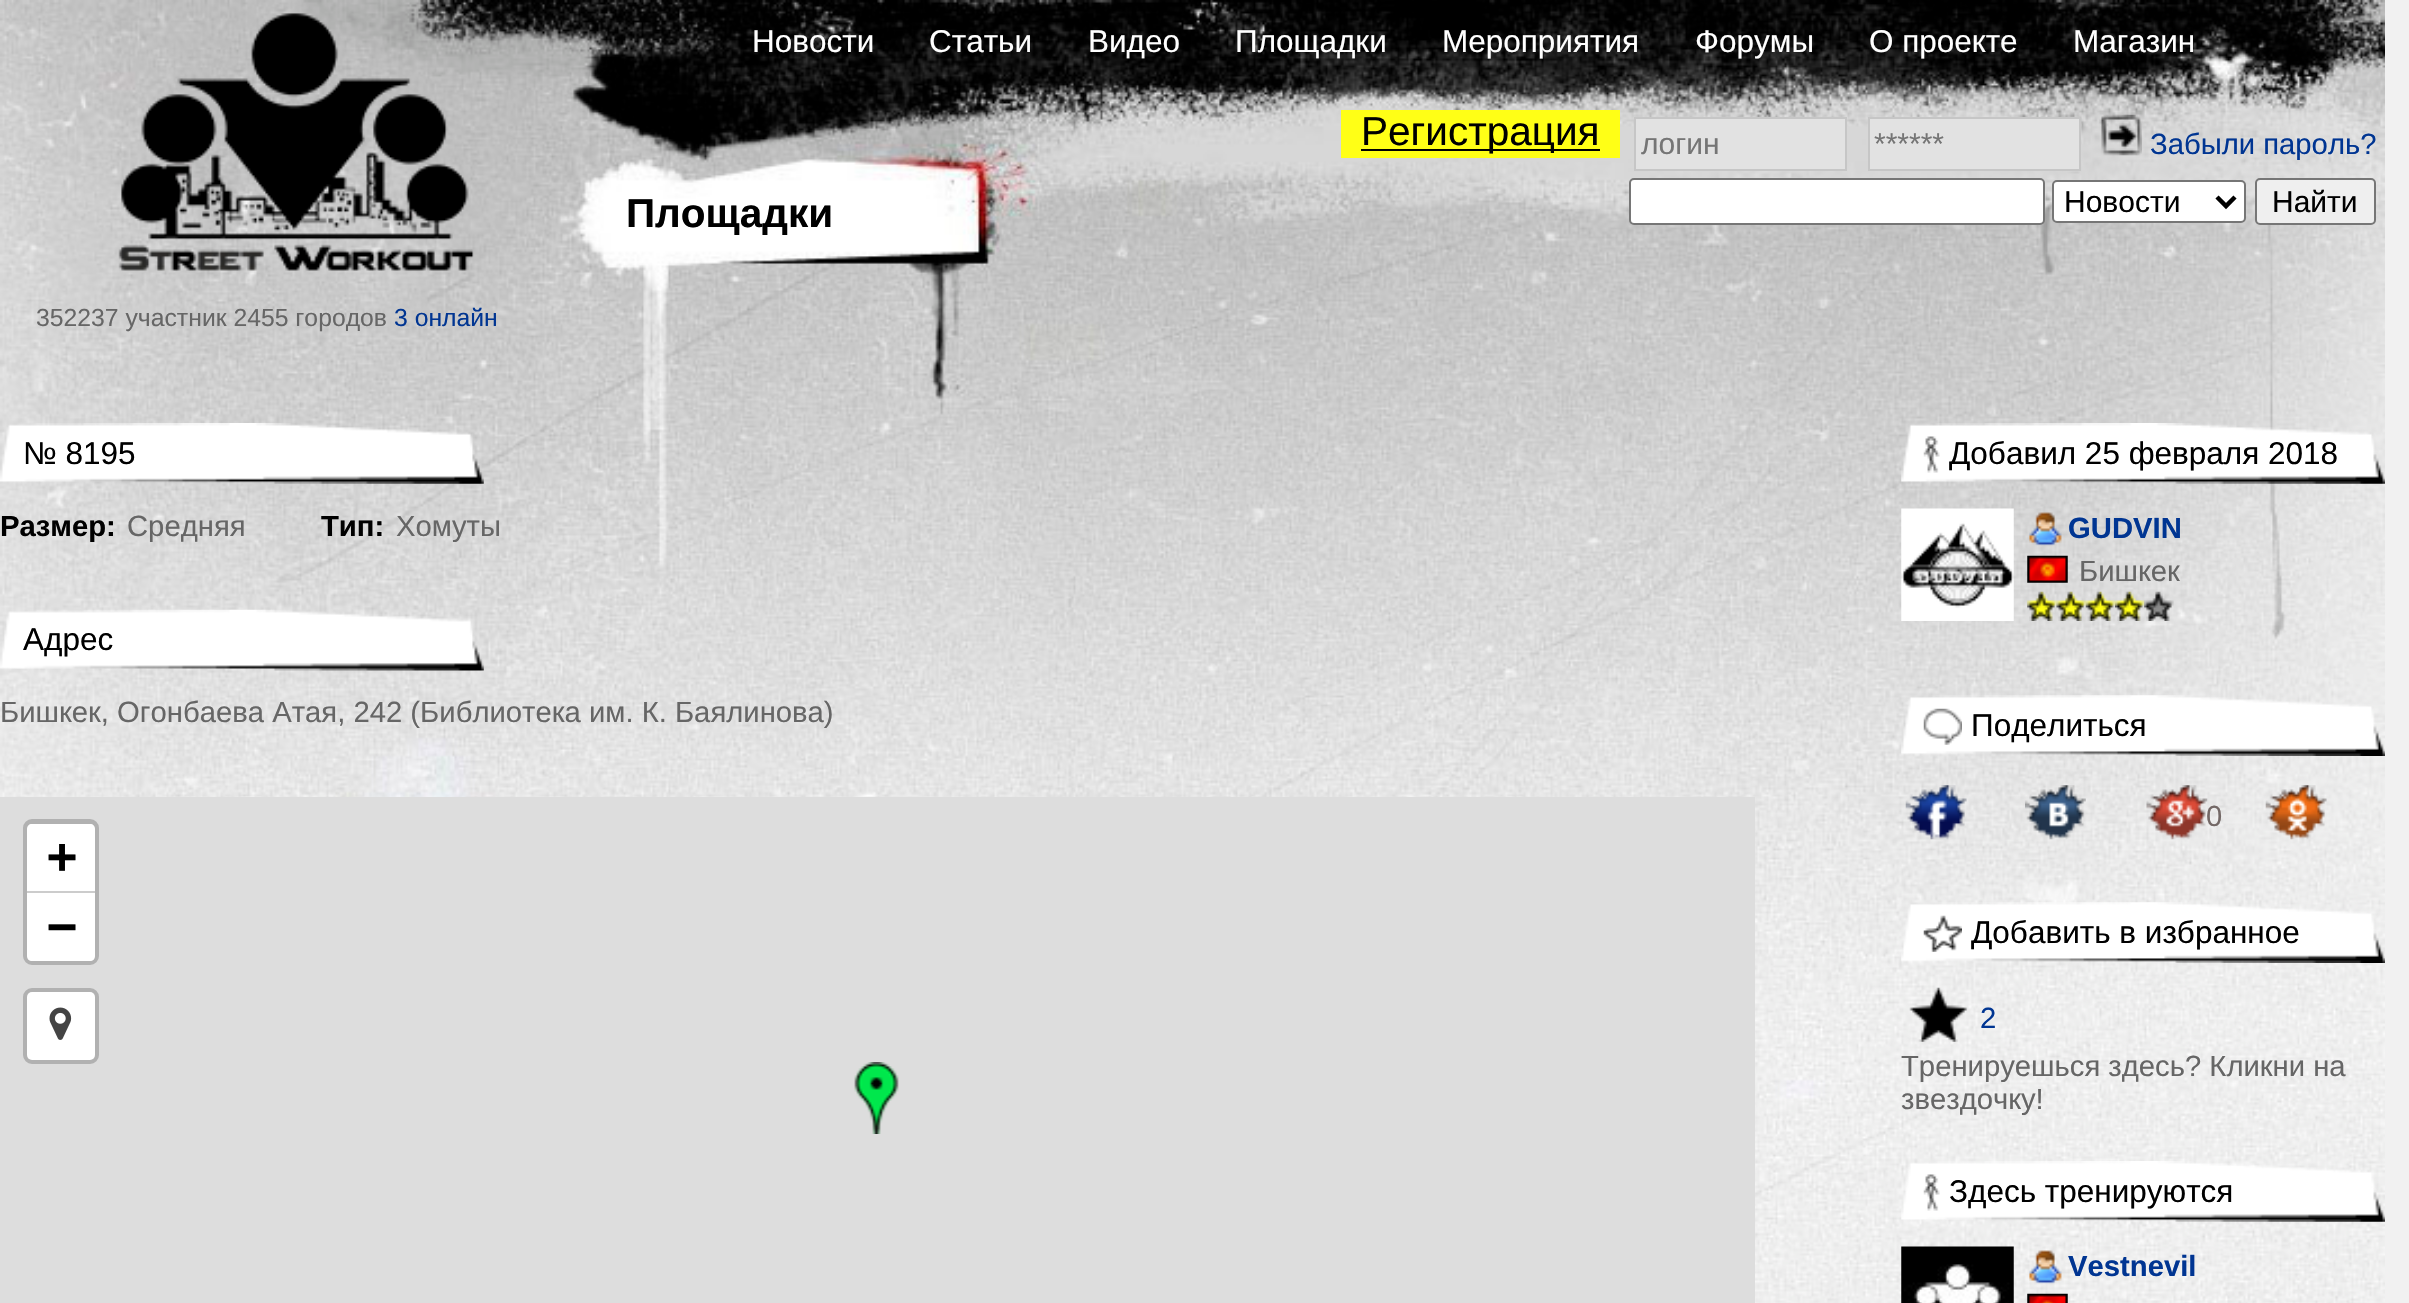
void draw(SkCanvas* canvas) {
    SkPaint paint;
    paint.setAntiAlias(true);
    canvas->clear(0xFFF1F1F1);
    canvas->drawImageRect(SkImages::DeferredFromEncodedData(SkData::MakeFromFileName("img1.png")), SkRect::MakeXYWH(0, 0, 2385, 1303), SkSamplingOptions());
    SkFont font1(fontMgr->matchFamilyStyle("Liberation Sans", SkFontStyle::Normal()), 31.5f);
    font1.setSubpixel(true);
    paint.setColor(0xFFFFFFFF);
    canvas->drawString("Новости", 752, 52, font1, paint);
    canvas->drawString("Статьи", 929, 52, font1, paint);
    canvas->drawString("Видео", 1088, 52, font1, paint);
    canvas->drawString("Площадки", 1235, 52, font1, paint);
    canvas->drawString("Мероприятия", 1442, 52, font1, paint);
    canvas->drawString("Форумы", 1695, 52, font1, paint);
    canvas->drawString("О проекте", 1869, 52, font1, paint);
    canvas->drawString("Магазин", 2073, 52, font1, paint);
    paint.setColor(0xFFFFFF16);
    canvas->drawRect(SkRect::MakeXYWH(1341, 110, 279, 48), paint);
    paint.setColor(0xFF000000);
    canvas->drawRect(SkRect::MakeXYWH(1361, 149, 239, 2), paint);
    SkFont font2(fontMgr->matchFamilyStyle("Liberation Sans", SkFontStyle::Normal()), 40.5f);
    font2.setSubpixel(true);
    canvas->drawString("Регистрация", 1361, 145, font2, paint);
    paint.setColor(0xFFE2E2E2);
    canvas->drawRect(SkRect::MakeXYWH(1635, 118, 211, 52), paint);
    paint.setStyle(SkPaint::kStroke_Style);
    paint.setStrokeWidth(2);
    paint.setColor(0xFFC6C6C6);
    canvas->drawRect(SkRect::MakeXYWH(1635, 118, 211, 52), paint);
    SkFont font3(fontMgr->matchFamilyStyle("Liberation Sans", SkFontStyle::Normal()), 30);
    font3.setSubpixel(true);
    paint.setStyle(SkPaint::kFill_Style);
    paint.setColor(0xFF757575);
    canvas->drawString("логин", 1641, 154, font3, paint);
    paint.setColor(0xFFE2E2E2);
    canvas->drawRect(SkRect::MakeXYWH(1869, 118, 211, 52), paint);
    paint.setStyle(SkPaint::kStroke_Style);
    paint.setColor(0xFFC6C6C6);
    canvas->drawRect(SkRect::MakeXYWH(1869, 118, 211, 52), paint);
    paint.setStyle(SkPaint::kFill_Style);
    paint.setColor(0xFF757575);
    canvas->drawString("******", 1874, 154, font3, paint);
    canvas->drawImageRect(SkImages::DeferredFromEncodedData(SkData::MakeFromFileName("img2.png")), SkRect::MakeXYWH(2101, 114, 41, 42), SkSamplingOptions());
    SkFont font4(fontMgr->matchFamilyStyle("Liberation Sans", SkFontStyle::Normal()), 29.25f);
    font4.setSubpixel(true);
    paint.setColor(0xFF003592);
    canvas->drawString("Забыли пароль?", 2150, 154, font4, paint);
    SkFont font5(fontMgr->matchFamilyStyle("Liberation Sans", SkFontStyle::Bold()), 40.5f);
    font5.setSubpixel(true);
    paint.setColor(0xFF000000);
    canvas->drawString("Площадки", 626, 227, font5, paint);
    paint.setColor(0xFFFFFFFF);
    canvas->drawRoundRect(SkRect::MakeXYWH(1630, 179, 414, 45), 4, 4, paint);
    paint.setStyle(SkPaint::kStroke_Style);
    paint.setColor(0xFF767676);
    canvas->drawRoundRect(SkRect::MakeXYWH(1630, 179, 414, 45), 4, 4, paint);
    paint.setStyle(SkPaint::kFill_Style);
    paint.setColor(0xFFFFFFFF);
    canvas->drawRoundRect(SkRect::MakeXYWH(2053, 181, 192, 41), 4, 4, paint);
    paint.setStyle(SkPaint::kStroke_Style);
    paint.setColor(0xFF767676);
    canvas->drawRoundRect(SkRect::MakeXYWH(2053, 181, 192, 41), 4, 4, paint);
    paint.setStrokeWidth(4.5f);
    paint.setColor(0xFF000000);
    canvas->drawPath(SkPathBuilder().moveTo(2217, 197).lineTo(2226, 206).lineTo(2235, 197).detach(), paint);
    paint.setStyle(SkPaint::kFill_Style);
    canvas->drawString("Новости", 2064, 212, font3, paint);
    paint.setColor(0xFFEFEFEF);
    canvas->drawRoundRect(SkRect::MakeXYWH(2256, 179, 119, 45), 4, 4, paint);
    paint.setStyle(SkPaint::kStroke_Style);
    paint.setStrokeWidth(2);
    paint.setColor(0xFF767676);
    canvas->drawRoundRect(SkRect::MakeXYWH(2256, 179, 119, 45), 4, 4, paint);
    paint.setStyle(SkPaint::kFill_Style);
    paint.setColor(0xFF000000);
    canvas->drawString("Найти", 2272, 212, font3, paint);
    SkFont font6(fontMgr->matchFamilyStyle("Liberation Sans", SkFontStyle::Normal()), 24.75f);
    font6.setSubpixel(true);
    paint.setColor(0xFF666666);
    canvas->drawString("352237 участник 2455 городов", 36, 326, font6, paint);
    paint.setColor(0xFF003592);
    canvas->drawString("3 онлайн", 394, 326, font6, paint);
    canvas->drawImageRect(SkImages::DeferredFromEncodedData(SkData::MakeFromFileName("img3.png")), SkRect::MakeXYWH(0, 423, 484, 61), SkSamplingOptions());
    paint.setColor(0xFF000000);
    canvas->drawString("№ 8195", 23, 464, font1, paint);
    SkFont font7(fontMgr->matchFamilyStyle("Liberation Sans", SkFontStyle::Bold()), 29.25f);
    font7.setSubpixel(true);
    canvas->drawString("Размер:", 0, 536, font7, paint);
    paint.setColor(0xFF666666);
    canvas->drawString("Средняя", 127, 536, font4, paint);
    paint.setColor(0xFF000000);
    canvas->drawString("Тип:", 321, 536, font7, paint);
    paint.setColor(0xFF666666);
    canvas->drawString("Хомуты", 396, 536, font4, paint);
    canvas->drawImageRect(SkImages::DeferredFromEncodedData(SkData::MakeFromFileName("img4.png")), SkRect::MakeXYWH(0, 609, 484, 62), SkSamplingOptions());
    paint.setColor(0xFF000000);
    canvas->drawString("Адрес", 23, 650, font1, paint);
    paint.setColor(0xFF666666);
    canvas->drawString("Бишкек, Огонбаева Атая, 242 (Библиотека им. К. Баялинова)", 0, 722, font4, paint);
    paint.setColor(0xFFDDDDDD);
    canvas->drawRect(SkRect::MakeXYWH(0, 797, 1755, 506), paint);
    paint.setStyle(SkPaint::kStroke_Style);
    paint.setStrokeWidth(5);
    paint.setColor(0xFFB1B1B1);
    canvas->drawRoundRect(SkRect::MakeXYWH(25.5f, 821.5f, 71, 141), 6.5f, 6.5f, paint);
    paint.setStyle(SkPaint::kFill_Style);
    paint.setColor(0xFFFFFFFF);
    canvas->drawPath(SkPathBuilder().moveTo(32, 824).lineTo(90, 824).cubicTo(93, 824, 95, 826, 95, 829).lineTo(95, 893).lineTo(27, 893).lineTo(27, 829).cubicTo(27, 826, 29, 824, 32, 824).close().detach(), paint);
    paint.setColor(0xFFCCCCCC);
    canvas->drawRect(SkRect::MakeXYWH(27, 891, 68, 2), paint);
    SkFont font8(fontMgr->matchFamilyStyle("DejaVu Sans Mono", SkFontStyle::Bold()), 50);
    font8.setSubpixel(true);
    paint.setColor(0xFF000000);
    canvas->drawString("+", 47, 873, font8, paint);
    paint.setColor(0xFFFFFFFF);
    canvas->drawPath(SkPathBuilder().moveTo(27, 893).lineTo(95, 893).lineTo(95, 956).cubicTo(95, 959, 93, 961, 90, 961).lineTo(32, 961).cubicTo(29, 961, 27, 959, 27, 956).close().detach(), paint);
    paint.setColor(0xFF000000);
    canvas->drawString("−", 47, 943, font8, paint);
    paint.setStyle(SkPaint::kStroke_Style);
    paint.setColor(0xFFB1B1B1);
    canvas->drawRoundRect(SkRect::MakeXYWH(25.5f, 990.5f, 71, 71), 6.5f, 6.5f, paint);
    paint.setStyle(SkPaint::kFill_Style);
    paint.setColor(0xFFFFFFFF);
    canvas->drawRoundRect(SkRect::MakeXYWH(27, 992, 68, 68), 5, 5, paint);
    canvas->drawImageRect(SkImages::DeferredFromEncodedData(SkData::MakeFromFileName("img5.png")), SkRect::MakeXYWH(49, 1007, 23, 33), SkSamplingOptions());
    canvas->drawImageRect(SkImages::DeferredFromEncodedData(SkData::MakeFromFileName("img6.png")), SkRect::MakeXYWH(854, 1062, 45, 72), SkSamplingOptions());
    canvas->drawImageRect(SkImages::DeferredFromEncodedData(SkData::MakeFromFileName("img7.png")), SkRect::MakeXYWH(1901, 423, 484, 61), SkSamplingOptions());
    canvas->drawImageRect(SkImages::DeferredFromEncodedData(SkData::MakeFromFileName("img8.png")), SkRect::MakeXYWH(1923, 436, 17, 37), SkSamplingOptions());
    paint.setColor(0xFF000000);
    canvas->drawString("Добавил 25 февраля 2018", 1949, 464, font1, paint);
    canvas->drawImageRect(SkImages::DeferredFromEncodedData(SkData::MakeFromFileName("img9.png")), SkRect::MakeXYWH(1901, 508, 113, 113), SkSamplingOptions());
    canvas->drawImageRect(SkImages::DeferredFromEncodedData(SkData::MakeFromFileName("img10.png")), SkRect::MakeXYWH(2029, 512, 33, 34), SkSamplingOptions());
    paint.setColor(0xFF003592);
    canvas->drawString("GUDVIN", 2068, 538, font7, paint);
    canvas->drawImageRect(SkImages::DeferredFromEncodedData(SkData::MakeFromFileName("img11.png")), SkRect::MakeXYWH(2027, 555, 41, 28), SkSamplingOptions());
    paint.setColor(0xFF666666);
    canvas->drawString("Бишкек", 2079, 581, font4, paint);
    canvas->drawImageRect(SkImages::DeferredFromEncodedData(SkData::MakeFromFileName("img12.png")), SkRect::MakeXYWH(2027, 591, 30, 30), SkSamplingOptions());
    canvas->drawImageRect(SkImages::DeferredFromEncodedData(SkData::MakeFromFileName("img13.png")), SkRect::MakeXYWH(2056, 591, 30, 30), SkSamplingOptions());
    canvas->drawImageRect(SkImages::DeferredFromEncodedData(SkData::MakeFromFileName("img14.png")), SkRect::MakeXYWH(2085, 591, 30, 30), SkSamplingOptions());
    canvas->drawImageRect(SkImages::DeferredFromEncodedData(SkData::MakeFromFileName("img15.png")), SkRect::MakeXYWH(2115, 591, 30, 30), SkSamplingOptions());
    canvas->drawImageRect(SkImages::DeferredFromEncodedData(SkData::MakeFromFileName("img16.png")), SkRect::MakeXYWH(2144, 591, 30, 30), SkSamplingOptions());
    canvas->drawImageRect(SkImages::DeferredFromEncodedData(SkData::MakeFromFileName("img17.png")), SkRect::MakeXYWH(1901, 695, 484, 61), SkSamplingOptions());
    canvas->drawImageRect(SkImages::DeferredFromEncodedData(SkData::MakeFromFileName("img18.png")), SkRect::MakeXYWH(1923, 708, 39, 37), SkSamplingOptions());
    paint.setColor(0xFF000000);
    canvas->drawString("Поделиться", 1971, 736, font1, paint);
    canvas->drawImageRect(SkImages::DeferredFromEncodedData(SkData::MakeFromFileName("img19.png")), SkRect::MakeXYWH(1905, 785, 62, 55), SkSamplingOptions());
    canvas->drawImageRect(SkImages::DeferredFromEncodedData(SkData::MakeFromFileName("img20.png")), SkRect::MakeXYWH(2025, 785, 61, 55), SkSamplingOptions());
    canvas->drawImageRect(SkImages::DeferredFromEncodedData(SkData::MakeFromFileName("img21.png")), SkRect::MakeXYWH(2146, 785, 62, 55), SkSamplingOptions());
    paint.setColor(0xFF736866);
    canvas->drawString("0", 2206, 826, font4, paint);
    canvas->drawImageRect(SkImages::DeferredFromEncodedData(SkData::MakeFromFileName("img22.png")), SkRect::MakeXYWH(2265, 785, 62, 55), SkSamplingOptions());
    canvas->drawImageRect(SkImages::DeferredFromEncodedData(SkData::MakeFromFileName("img23.png")), SkRect::MakeXYWH(1901, 902, 484, 61), SkSamplingOptions());
    canvas->drawImageRect(SkImages::DeferredFromEncodedData(SkData::MakeFromFileName("img24.png")), SkRect::MakeXYWH(1923, 915, 39, 37), SkSamplingOptions());
    paint.setColor(0xFF000000);
    canvas->drawString("Добавить в избранное", 1971, 943, font1, paint);
    canvas->drawImageRect(SkImages::DeferredFromEncodedData(SkData::MakeFromFileName("img25.png")), SkRect::MakeXYWH(1909, 987, 59, 55), SkSamplingOptions());
    paint.setColor(0xFF003592);
    canvas->drawString("2", 1980, 1028, font4, paint);
    paint.setColor(0xFF666666);
    canvas->drawString("Тренируешься здесь? Кликни на", 1901, 1076, font4, paint);
    canvas->drawString("звездочку!", 1901, 1109, font4, paint);
    canvas->drawImageRect(SkImages::DeferredFromEncodedData(SkData::MakeFromFileName("img26.png")), SkRect::MakeXYWH(1901, 1161, 484, 61), SkSamplingOptions());
    canvas->drawImageRect(SkImages::DeferredFromEncodedData(SkData::MakeFromFileName("img8.png")), SkRect::MakeXYWH(1923, 1174, 17, 37), SkSamplingOptions());
    paint.setColor(0xFF000000);
    canvas->drawString("Здесь тренируются", 1949, 1202, font1, paint);
    canvas->drawImageRect(SkImages::DeferredFromEncodedData(SkData::MakeFromFileName("img27.png")), SkRect::MakeXYWH(1901, 1246, 113, 57), SkSamplingOptions());
    canvas->drawImageRect(SkImages::DeferredFromEncodedData(SkData::MakeFromFileName("img28.png")), SkRect::MakeXYWH(2029, 1250, 33, 34), SkSamplingOptions());
    paint.setColor(0xFF003592);
    canvas->drawString("Vestnevil", 2068, 1276, font7, paint);
    canvas->drawImageRect(SkImages::DeferredFromEncodedData(SkData::MakeFromFileName("img29.png")), SkRect::MakeXYWH(2027, 1293, 41, 10), SkSamplingOptions());
}
